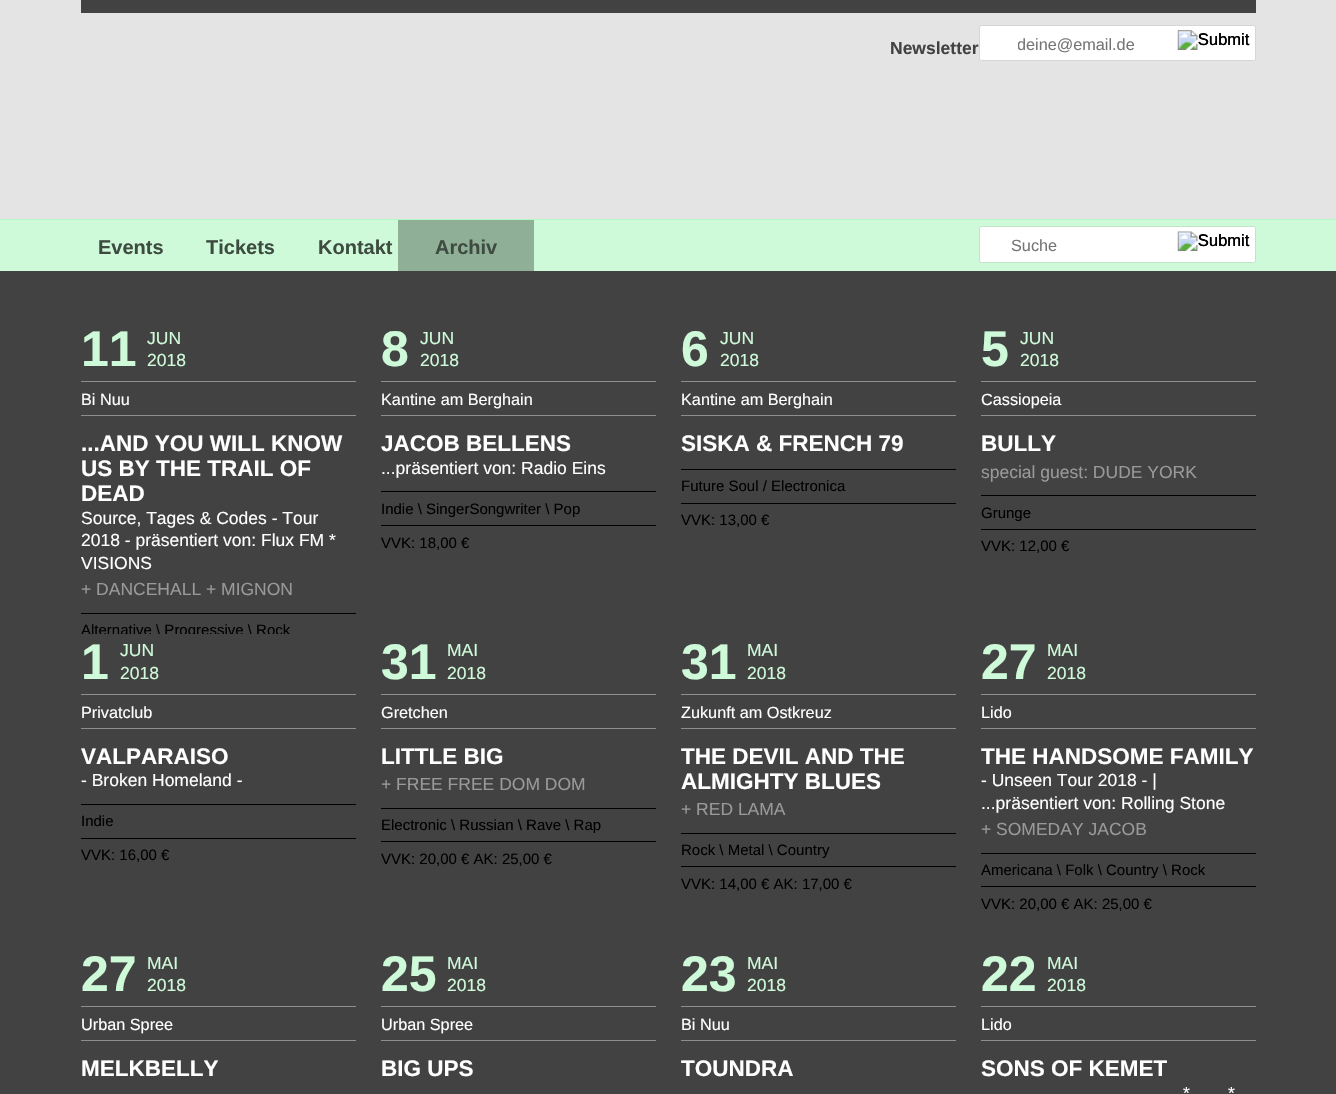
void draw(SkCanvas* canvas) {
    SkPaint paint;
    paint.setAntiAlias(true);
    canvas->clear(0xFFE4E4E4);
    paint.setColor(0xFF424242);
    canvas->drawRect(SkRect::MakeXYWH(81, 0, 1175, 13), paint);
    SkFont font1(fontMgr->matchFamilyStyle("Liberation Sans", SkFontStyle::Bold()), 17.5f);
    font1.setSubpixel(true);
    canvas->drawString("Newsletter", 890, 54, font1, paint);
    paint.setColor(0xFFFFFFFF);
    canvas->drawRoundRect(SkRect::MakeXYWH(979.5f, 25.5f, 276, 35), 2, 2, paint);
    paint.setStyle(SkPaint::kStroke_Style);
    paint.setStrokeWidth(1);
    paint.setColor(0xFFD6D6D6);
    canvas->drawRoundRect(SkRect::MakeXYWH(979.5f, 25.5f, 276, 35), 2, 2, paint);
    canvas->save();
    canvas->clipRect(SkRect::MakeXYWH(1018, 35, 200, 19));
    SkFont font2(fontMgr->matchFamilyStyle("Liberation Sans", SkFontStyle::Normal()), 16.25f);
    font2.setSubpixel(true);
    paint.setStyle(SkPaint::kFill_Style);
    paint.setColor(0xFF757575);
    canvas->drawString("deine@email.de", 1017, 50, font2, paint);
    canvas->restore();
    canvas->drawImageRect(SkImages::DeferredFromEncodedData(SkData::MakeFromFileName("img1.png")), SkRect::MakeXYWH(1177, 30, 73, 20), SkSamplingOptions());
    SkFont font3(fontMgr->matchFamilyStyle("Liberation Sans", SkFontStyle::Normal()), 16.5f);
    font3.setSubpixel(true);
    paint.setColor(0xFF000000);
    canvas->drawString("Submit", 1198, 45, font3, paint);
    paint.setColor(0xFFCFFAD9);
    canvas->drawRect(SkRect::MakeXYWH(0, 220, 1336, 51), paint);
    paint.setColor(0xFFB8F8C7);
    canvas->drawRect(SkRect::MakeXYWH(0, 219, 1336, 1), paint);
    SkFont font4(fontMgr->matchFamilyStyle("Liberation Sans", SkFontStyle::Bold()), 20);
    font4.setSubpixel(true);
    paint.setColor(0xFF3E4B41);
    canvas->drawString("Events", 98, 254, font4, paint);
    canvas->drawString("Tickets", 206, 254, font4, paint);
    canvas->drawString("Kontakt", 318, 254, font4, paint);
    paint.setColor(0xFF90AF97);
    canvas->drawRect(SkRect::MakeXYWH(398, 220, 136, 51), paint);
    paint.setColor(0xFF3E4B41);
    canvas->drawString("Archiv", 435, 254, font4, paint);
    paint.setColor(0xFFFFFFFF);
    canvas->drawRoundRect(SkRect::MakeXYWH(979.5f, 226.5f, 276, 36), 2, 2, paint);
    paint.setStyle(SkPaint::kStroke_Style);
    paint.setColor(0xFFC0E4C9);
    canvas->drawRoundRect(SkRect::MakeXYWH(979.5f, 226.5f, 276, 36), 2, 2, paint);
    paint.setStyle(SkPaint::kFill_Style);
    paint.setColor(0xFF757575);
    canvas->drawString("Suche", 1011, 251, font2, paint);
    canvas->drawImageRect(SkImages::DeferredFromEncodedData(SkData::MakeFromFileName("img2.png")), SkRect::MakeXYWH(1177, 231, 73, 21), SkSamplingOptions());
    paint.setColor(0xFF000000);
    canvas->drawString("Submit", 1198, 246, font3, paint);
    paint.setColor(0xFF424242);
    canvas->drawRect(SkRect::MakeXYWH(0, 271, 1336, 823), paint);
    SkFont font5(fontMgr->matchFamilyStyle("Liberation Sans", SkFontStyle::Bold()), 50);
    font5.setSubpixel(true);
    paint.setColor(0xFFCFFAD9);
    canvas->drawString("11", 81, 366, font5, paint);
    SkFont font6(fontMgr->matchFamilyStyle("Liberation Sans", SkFontStyle::Normal()), 17.5f);
    font6.setSubpixel(true);
    canvas->drawString("JUN", 147, 344, font6, paint);
    canvas->drawString("2018", 147, 366, font6, paint);
    paint.setColor(0xFF8E8E8E);
    canvas->drawRect(SkRect::MakeXYWH(81, 381, 275, 1), paint);
    canvas->drawRect(SkRect::MakeXYWH(81, 415, 275, 1), paint);
    paint.setColor(0xFFFFFFFF);
    canvas->drawString("Bi Nuu", 81, 405, font2, paint);
    SkFont font7(fontMgr->matchFamilyStyle("Liberation Sans", SkFontStyle::Bold()), 22.5f);
    font7.setSubpixel(true);
    canvas->drawString("...AND YOU WILL KNOW", 81, 451, font7, paint);
    canvas->drawString("US BY THE TRAIL OF", 81, 476, font7, paint);
    canvas->drawString("DEAD", 81, 501, font7, paint);
    canvas->drawString("Source, Tages & Codes - Tour", 81, 524, font6, paint);
    canvas->drawString("2018 - präsentiert von: Flux FM *", 81, 546, font6, paint);
    canvas->drawString("VISIONS", 81, 569, font6, paint);
    paint.setColor(0xFF999999);
    canvas->drawString("+ DANCEHALL + MIGNON", 81, 595, font6, paint);
    paint.setColor(0xFF000000);
    canvas->drawRect(SkRect::MakeXYWH(81, 613, 275, 1), paint);
    canvas->save();
    canvas->clipRect(SkRect::MakeXYWH(81, 321, 275, 313));
    SkFont font8(fontMgr->matchFamilyStyle("Liberation Sans", SkFontStyle::Normal()), 15);
    font8.setSubpixel(true);
    canvas->drawString("Alternative \\ Progressive \\ Rock", 81, 635, font8, paint);
    canvas->restore();
    paint.setColor(0xFFCFFAD9);
    canvas->drawString("8", 381, 366, font5, paint);
    canvas->drawString("JUN", 420, 344, font6, paint);
    canvas->drawString("2018", 420, 366, font6, paint);
    paint.setColor(0xFF8E8E8E);
    canvas->drawRect(SkRect::MakeXYWH(381, 381, 275, 1), paint);
    canvas->drawRect(SkRect::MakeXYWH(381, 415, 275, 1), paint);
    paint.setColor(0xFFFFFFFF);
    canvas->drawString("Kantine am Berghain", 381, 405, font2, paint);
    canvas->drawString("JACOB BELLENS", 381, 451, font7, paint);
    canvas->drawString("...präsentiert von: Radio Eins", 381, 474, font6, paint);
    paint.setColor(0xFF000000);
    canvas->drawRect(SkRect::MakeXYWH(381, 491, 275, 1), paint);
    canvas->drawString("Indie \\ SingerSongwriter \\ Pop", 381, 514, font8, paint);
    canvas->drawRect(SkRect::MakeXYWH(381, 525, 275, 1), paint);
    canvas->drawString("VVK: 18,00 €", 381, 548, font8, paint);
    paint.setColor(0xFFCFFAD9);
    canvas->drawString("6", 681, 366, font5, paint);
    canvas->drawString("JUN", 720, 344, font6, paint);
    canvas->drawString("2018", 720, 366, font6, paint);
    paint.setColor(0xFF8E8E8E);
    canvas->drawRect(SkRect::MakeXYWH(681, 381, 275, 1), paint);
    canvas->drawRect(SkRect::MakeXYWH(681, 415, 275, 1), paint);
    paint.setColor(0xFFFFFFFF);
    canvas->drawString("Kantine am Berghain", 681, 405, font2, paint);
    canvas->drawString("SISKA & FRENCH 79", 681, 451, font7, paint);
    paint.setColor(0xFF000000);
    canvas->drawRect(SkRect::MakeXYWH(681, 469, 275, 1), paint);
    canvas->drawString("Future Soul / Electronica", 681, 491, font8, paint);
    canvas->drawRect(SkRect::MakeXYWH(681, 503, 275, 1), paint);
    canvas->drawString("VVK: 13,00 €", 681, 525, font8, paint);
    paint.setColor(0xFFCFFAD9);
    canvas->drawString("5", 981, 366, font5, paint);
    canvas->drawString("JUN", 1020, 344, font6, paint);
    canvas->drawString("2018", 1020, 366, font6, paint);
    paint.setColor(0xFF8E8E8E);
    canvas->drawRect(SkRect::MakeXYWH(981, 381, 275, 1), paint);
    canvas->drawRect(SkRect::MakeXYWH(981, 415, 275, 1), paint);
    paint.setColor(0xFFFFFFFF);
    canvas->drawString("Cassiopeia", 981, 405, font2, paint);
    canvas->drawString("BULLY", 981, 451, font7, paint);
    paint.setColor(0xFF999999);
    canvas->drawString("special guest: DUDE YORK", 981, 478, font6, paint);
    paint.setColor(0xFF000000);
    canvas->drawRect(SkRect::MakeXYWH(981, 495, 275, 1), paint);
    canvas->drawString("Grunge", 981, 518, font8, paint);
    canvas->drawRect(SkRect::MakeXYWH(981, 529, 275, 1), paint);
    canvas->drawString("VVK: 12,00 €", 981, 551, font8, paint);
    paint.setColor(0xFFCFFAD9);
    canvas->drawString("1", 81, 679, font5, paint);
    canvas->drawString("JUN", 120, 656, font6, paint);
    canvas->drawString("2018", 120, 679, font6, paint);
    paint.setColor(0xFF8E8E8E);
    canvas->drawRect(SkRect::MakeXYWH(81, 694, 275, 1), paint);
    canvas->drawRect(SkRect::MakeXYWH(81, 728, 275, 1), paint);
    paint.setColor(0xFFFFFFFF);
    canvas->drawString("Privatclub", 81, 718, font2, paint);
    canvas->drawString("VALPARAISO", 81, 764, font7, paint);
    canvas->drawString("- Broken Homeland -", 81, 786, font6, paint);
    paint.setColor(0xFF000000);
    canvas->drawRect(SkRect::MakeXYWH(81, 804, 275, 1), paint);
    canvas->drawString("Indie", 81, 826, font8, paint);
    canvas->drawRect(SkRect::MakeXYWH(81, 838, 275, 1), paint);
    canvas->drawString("VVK: 16,00 €", 81, 860, font8, paint);
    paint.setColor(0xFFCFFAD9);
    canvas->drawString("31", 381, 679, font5, paint);
    canvas->drawString("MAI", 447, 656, font6, paint);
    canvas->drawString("2018", 447, 679, font6, paint);
    paint.setColor(0xFF8E8E8E);
    canvas->drawRect(SkRect::MakeXYWH(381, 694, 275, 1), paint);
    canvas->drawRect(SkRect::MakeXYWH(381, 728, 275, 1), paint);
    paint.setColor(0xFFFFFFFF);
    canvas->drawString("Gretchen", 381, 718, font2, paint);
    canvas->drawString("LITTLE BIG", 381, 764, font7, paint);
    paint.setColor(0xFF999999);
    canvas->drawString("+ FREE FREE DOM DOM", 381, 790, font6, paint);
    paint.setColor(0xFF000000);
    canvas->drawRect(SkRect::MakeXYWH(381, 808, 275, 1), paint);
    canvas->drawString("Electronic \\ Russian \\ Rave \\ Rap", 381, 830, font8, paint);
    canvas->drawRect(SkRect::MakeXYWH(381, 841, 275, 1), paint);
    canvas->drawString("VVK: 20,00 € AK: 25,00 €", 381, 864, font8, paint);
    paint.setColor(0xFFCFFAD9);
    canvas->drawString("31", 681, 679, font5, paint);
    canvas->drawString("MAI", 747, 656, font6, paint);
    canvas->drawString("2018", 747, 679, font6, paint);
    paint.setColor(0xFF8E8E8E);
    canvas->drawRect(SkRect::MakeXYWH(681, 694, 275, 1), paint);
    canvas->drawRect(SkRect::MakeXYWH(681, 728, 275, 1), paint);
    paint.setColor(0xFFFFFFFF);
    canvas->drawString("Zukunft am Ostkreuz", 681, 718, font2, paint);
    canvas->drawString("THE DEVIL AND THE", 681, 764, font7, paint);
    canvas->drawString("ALMIGHTY BLUES", 681, 789, font7, paint);
    paint.setColor(0xFF999999);
    canvas->drawString("+ RED LAMA", 681, 815, font6, paint);
    paint.setColor(0xFF000000);
    canvas->drawRect(SkRect::MakeXYWH(681, 833, 275, 1), paint);
    canvas->drawString("Rock \\ Metal \\ Country", 681, 855, font8, paint);
    canvas->drawRect(SkRect::MakeXYWH(681, 866, 275, 1), paint);
    canvas->drawString("VVK: 14,00 € AK: 17,00 €", 681, 889, font8, paint);
    paint.setColor(0xFFCFFAD9);
    canvas->drawString("27", 981, 679, font5, paint);
    canvas->drawString("MAI", 1047, 656, font6, paint);
    canvas->drawString("2018", 1047, 679, font6, paint);
    paint.setColor(0xFF8E8E8E);
    canvas->drawRect(SkRect::MakeXYWH(981, 694, 275, 1), paint);
    canvas->drawRect(SkRect::MakeXYWH(981, 728, 275, 1), paint);
    paint.setColor(0xFFFFFFFF);
    canvas->drawString("Lido", 981, 718, font2, paint);
    canvas->drawString("THE HANDSOME FAMILY", 981, 764, font7, paint);
    canvas->drawString("- Unseen Tour 2018 - |", 981, 786, font6, paint);
    canvas->drawString("...präsentiert von: Rolling Stone", 981, 809, font6, paint);
    paint.setColor(0xFF999999);
    canvas->drawString("+ SOMEDAY JACOB", 981, 835, font6, paint);
    paint.setColor(0xFF000000);
    canvas->drawRect(SkRect::MakeXYWH(981, 853, 275, 1), paint);
    canvas->drawString("Americana \\ Folk \\ Country \\ Rock", 981, 875, font8, paint);
    canvas->drawRect(SkRect::MakeXYWH(981, 886, 275, 1), paint);
    canvas->drawString("VVK: 20,00 € AK: 25,00 €", 981, 909, font8, paint);
    paint.setColor(0xFFCFFAD9);
    canvas->drawString("27", 81, 991, font5, paint);
    canvas->drawString("MAI", 147, 969, font6, paint);
    canvas->drawString("2018", 147, 991, font6, paint);
    paint.setColor(0xFF8E8E8E);
    canvas->drawRect(SkRect::MakeXYWH(81, 1006, 275, 1), paint);
    canvas->drawRect(SkRect::MakeXYWH(81, 1040, 275, 1), paint);
    paint.setColor(0xFFFFFFFF);
    canvas->drawString("Urban Spree", 81, 1030, font2, paint);
    canvas->drawString("MELKBELLY", 81, 1076, font7, paint);
    paint.setColor(0xFFCFFAD9);
    canvas->drawString("25", 381, 991, font5, paint);
    canvas->drawString("MAI", 447, 969, font6, paint);
    canvas->drawString("2018", 447, 991, font6, paint);
    paint.setColor(0xFF8E8E8E);
    canvas->drawRect(SkRect::MakeXYWH(381, 1006, 275, 1), paint);
    canvas->drawRect(SkRect::MakeXYWH(381, 1040, 275, 1), paint);
    paint.setColor(0xFFFFFFFF);
    canvas->drawString("Urban Spree", 381, 1030, font2, paint);
    canvas->drawString("BIG UPS", 381, 1076, font7, paint);
    paint.setColor(0xFFCFFAD9);
    canvas->drawString("23", 681, 991, font5, paint);
    canvas->drawString("MAI", 747, 969, font6, paint);
    canvas->drawString("2018", 747, 991, font6, paint);
    paint.setColor(0xFF8E8E8E);
    canvas->drawRect(SkRect::MakeXYWH(681, 1006, 275, 1), paint);
    canvas->drawRect(SkRect::MakeXYWH(681, 1040, 275, 1), paint);
    paint.setColor(0xFFFFFFFF);
    canvas->drawString("Bi Nuu", 681, 1030, font2, paint);
    canvas->drawString("TOUNDRA", 681, 1076, font7, paint);
    paint.setColor(0xFFCFFAD9);
    canvas->drawString("22", 981, 991, font5, paint);
    canvas->drawString("MAI", 1047, 969, font6, paint);
    canvas->drawString("2018", 1047, 991, font6, paint);
    paint.setColor(0xFF8E8E8E);
    canvas->drawRect(SkRect::MakeXYWH(981, 1006, 275, 1), paint);
    canvas->drawRect(SkRect::MakeXYWH(981, 1040, 275, 1), paint);
    paint.setColor(0xFFFFFFFF);
    canvas->drawString("Lido", 981, 1030, font2, paint);
    canvas->drawString("SONS OF KEMET", 981, 1076, font7, paint);
    canvas->drawString("*", 1183, 1099, font6, paint);
    canvas->drawString("*", 1228, 1099, font6, paint);
}
